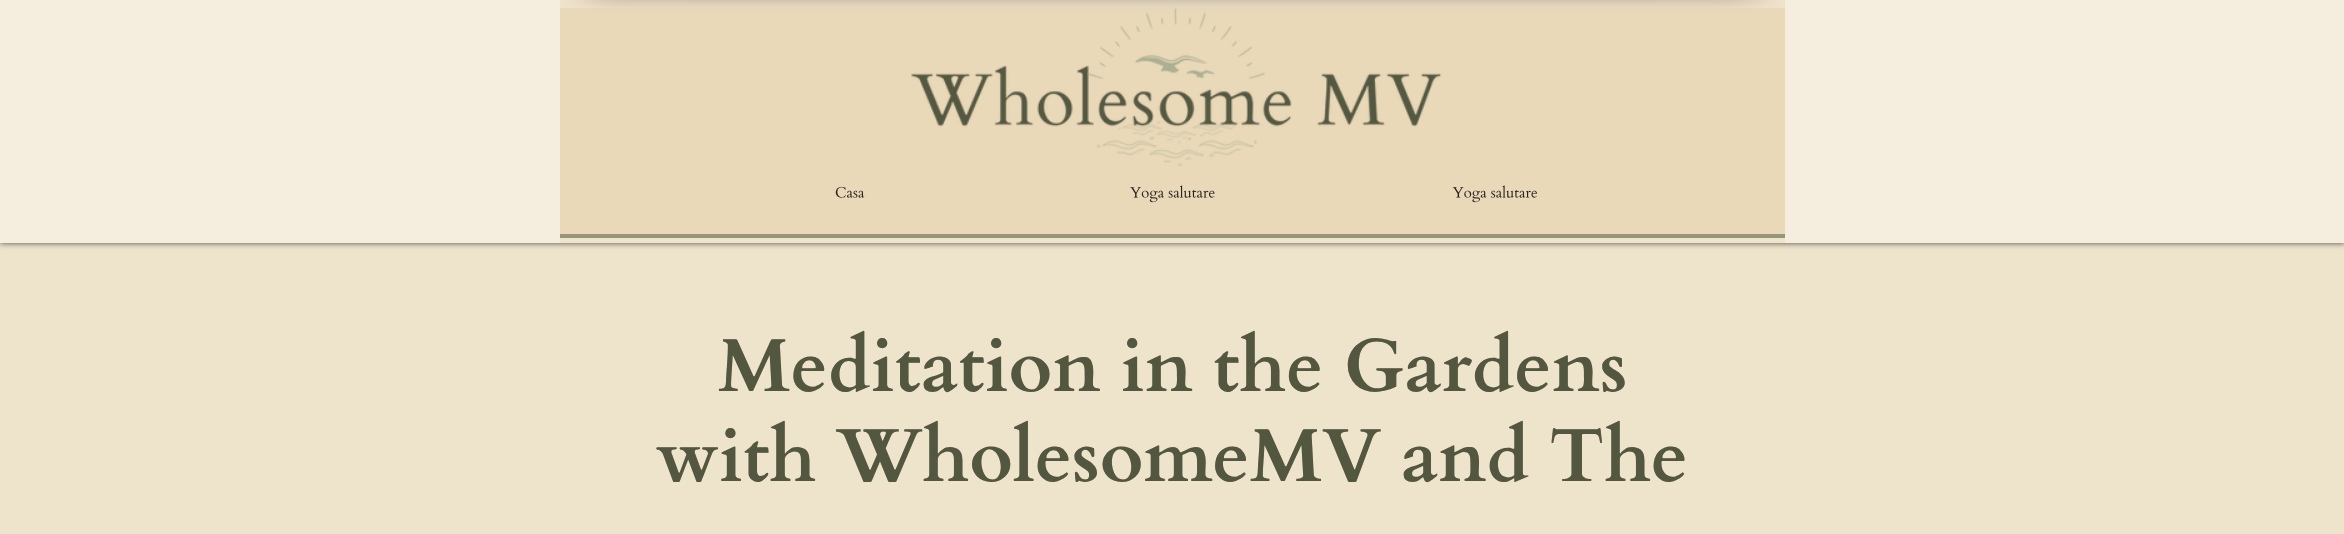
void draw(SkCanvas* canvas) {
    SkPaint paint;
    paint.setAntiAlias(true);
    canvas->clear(0xFFFFFFFF);
    canvas->drawImageRect(SkImages::DeferredFromEncodedData(SkData::MakeFromFileName("img6.png")), SkRect::MakeXYWH(564, 0, 121, 14), SkSamplingOptions());
    canvas->drawImageRect(SkImages::DeferredFromEncodedData(SkData::MakeFromFileName("img7.png")), SkRect::MakeXYWH(685, 0, 975, 14), SkSamplingOptions());
    canvas->drawImageRect(SkImages::DeferredFromEncodedData(SkData::MakeFromFileName("img8.png")), SkRect::MakeXYWH(1660, 0, 121, 14), SkSamplingOptions());
    paint.setColor(0xFFEEE3CB);
    canvas->drawRect(SkRect::MakeXYWH(0, 243, 2344, 291), paint);
    canvas->save();
    canvas->clipPath(SkPathBuilder(SkPathFillType::kEvenOdd).moveTo(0, 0).lineTo(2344, 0).lineTo(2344, 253).lineTo(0, 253).close().moveTo(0, 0).lineTo(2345, 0).lineTo(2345, 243).lineTo(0, 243).close().detach(), true);
    paint.setColor(0xB0000000);
    paint.setMaskFilter(SkMaskFilter::MakeBlur(kNormal_SkBlurStyle, 3));
    canvas->drawRect(SkRect::MakeXYWH(0, 0, 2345, 243), paint);
    paint.setMaskFilter(nullptr);
    canvas->restore();
    paint.setColor(0x6EE8D6B3);
    canvas->drawRect(SkRect::MakeXYWH(0, 0, 2344, 243), paint);
    paint.setColor(0x70E8D6B3);
    canvas->drawRect(SkRect::MakeXYWH(560, 0, 1225, 243), paint);
    paint.setColor(0xBFE8D6B3);
    canvas->drawRect(SkRect::MakeXYWH(560, 8, 1225, 226), paint);
    canvas->drawImageRect(SkImages::DeferredFromEncodedData(SkData::MakeFromFileName("img2.png")), SkRect::MakeXYWH(911, 65, 531, 62), SkSamplingOptions());
    canvas->drawImageRect(SkImages::DeferredFromEncodedData(SkData::MakeFromFileName("img1.png")), SkRect::MakeXYWH(1087, 7, 178, 160), SkSamplingOptions());
    canvas->drawImageRect(SkImages::DeferredFromEncodedData(SkData::MakeFromFileName("img3.png")), SkRect::MakeXYWH(835, 186, 30, 12), SkSamplingOptions());
    canvas->drawImageRect(SkImages::DeferredFromEncodedData(SkData::MakeFromFileName("img4.png")), SkRect::MakeXYWH(1130, 185, 85, 18), SkSamplingOptions());
    canvas->drawImageRect(SkImages::DeferredFromEncodedData(SkData::MakeFromFileName("img5.png")), SkRect::MakeXYWH(1452, 185, 85, 18), SkSamplingOptions());
    paint.setColor(0xFF969778);
    canvas->drawRect(SkRect::MakeXYWH(560, 234, 1225, 4), paint);
    SkFont font1(fontMgr->matchFamilyStyle("Cardo", SkFontStyle::Bold()), 75);
    font1.setSubpixel(true);
    paint.setColor(0xFF535740);
    canvas->drawString("Meditation in the Gardens", 718, 391, font1, paint);
    canvas->drawString("with WholesomeMV and The", 656, 481, font1, paint);
}
